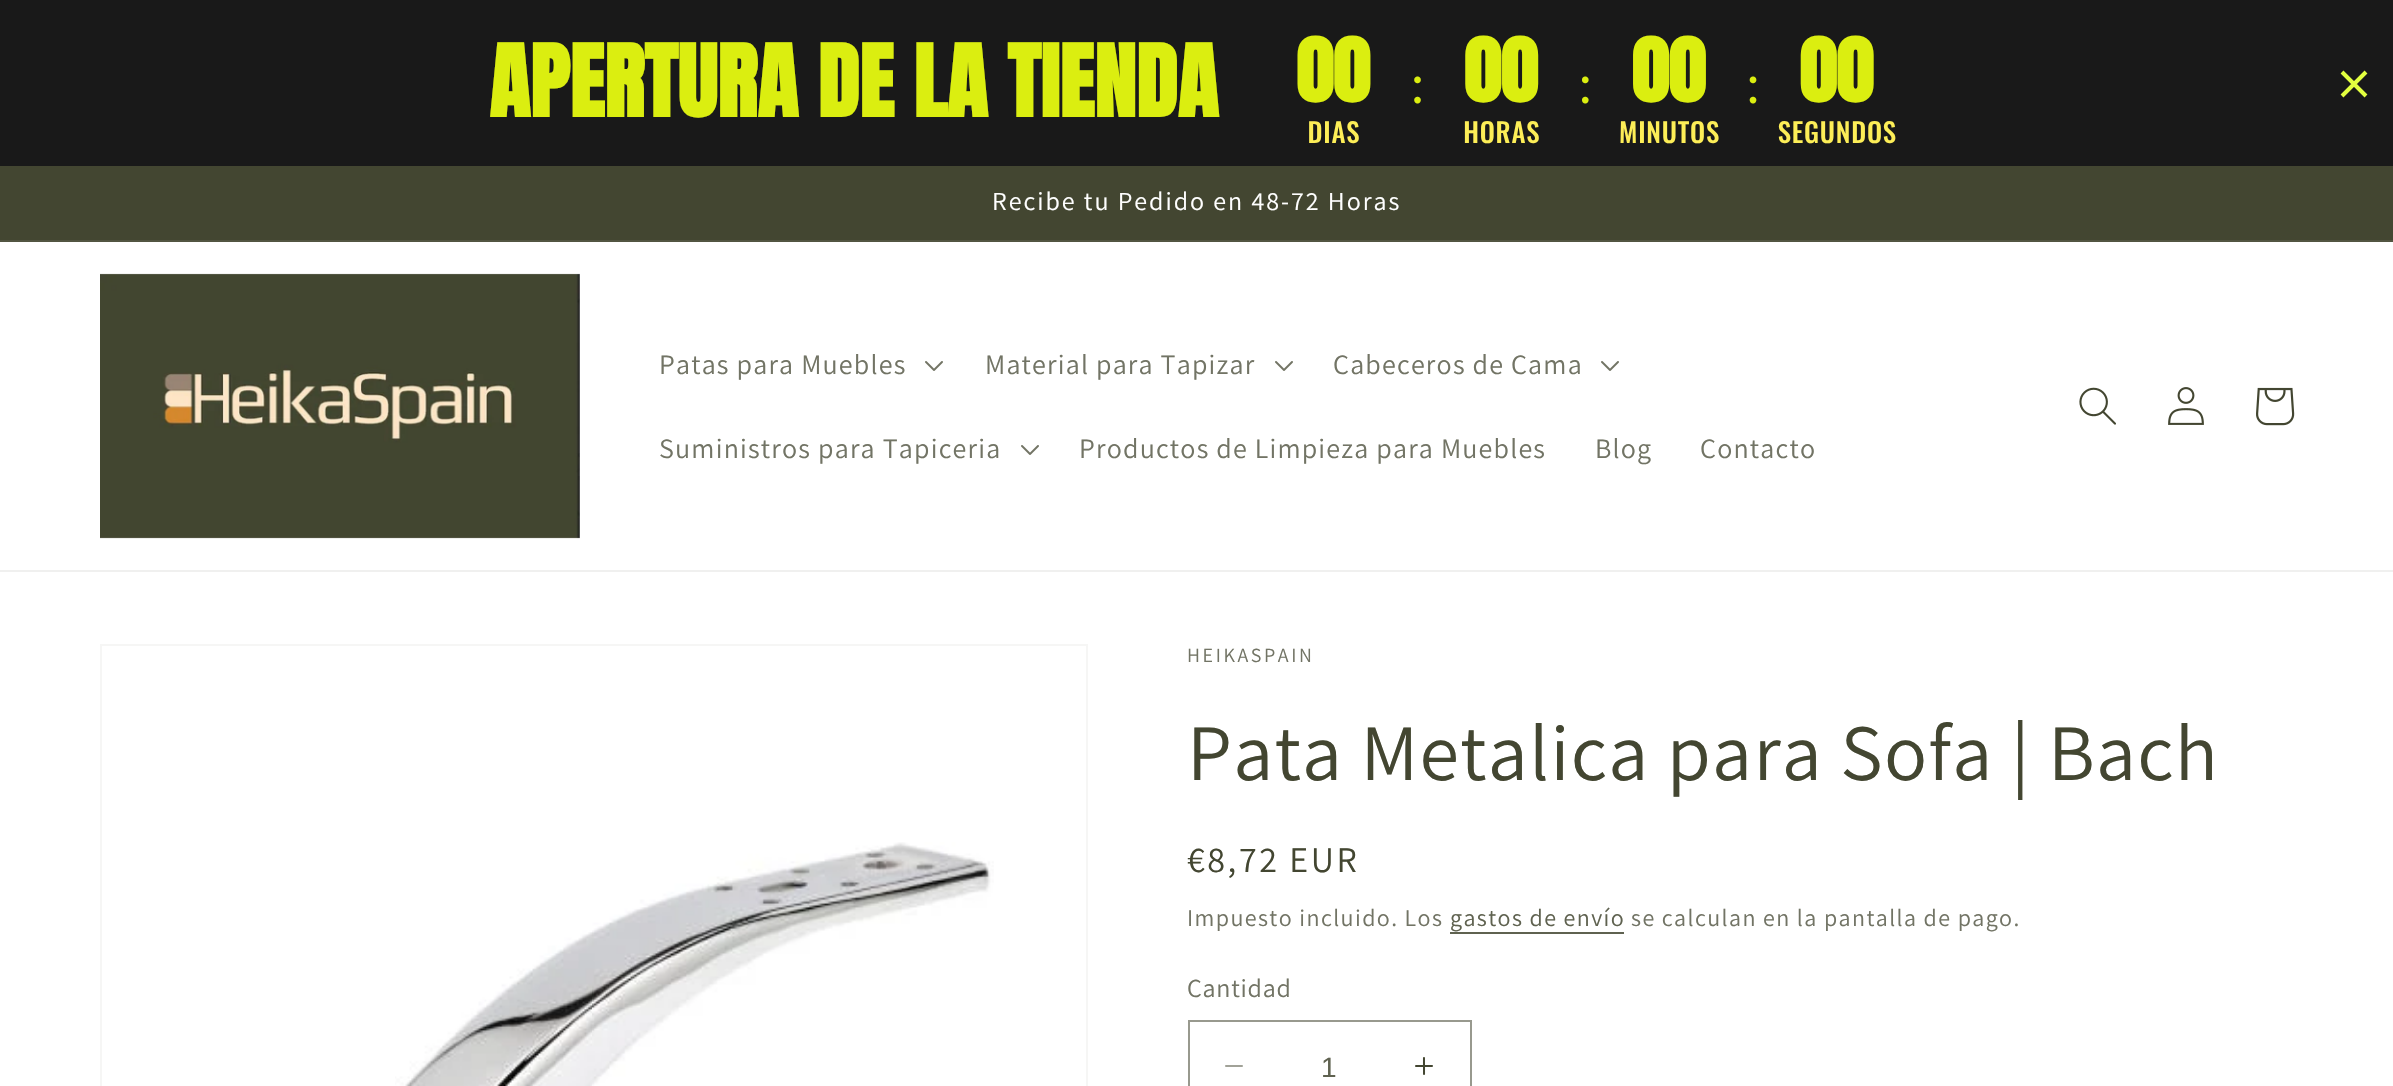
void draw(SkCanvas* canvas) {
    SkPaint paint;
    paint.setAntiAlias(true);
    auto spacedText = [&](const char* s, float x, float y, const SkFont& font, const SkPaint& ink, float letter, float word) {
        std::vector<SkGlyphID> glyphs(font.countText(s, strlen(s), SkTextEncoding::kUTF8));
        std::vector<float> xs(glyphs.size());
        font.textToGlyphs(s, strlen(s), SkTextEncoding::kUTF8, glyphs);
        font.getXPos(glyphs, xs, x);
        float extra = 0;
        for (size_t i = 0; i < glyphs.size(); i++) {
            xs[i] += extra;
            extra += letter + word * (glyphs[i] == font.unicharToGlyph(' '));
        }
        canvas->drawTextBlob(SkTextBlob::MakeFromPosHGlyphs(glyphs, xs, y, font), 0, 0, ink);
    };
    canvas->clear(0xFFFFFFFF);
    paint.setColor(0xFF191919);
    canvas->drawRect(SkRect::MakeXYWH(0, 0, 2393, 166), paint);
    SkFont font1(fontMgr->matchFamilyStyle("Anton", SkFontStyle::Bold()), 84);
    font1.setSubpixel(true);
    paint.setColor(0xFFDBEE10);
    canvas->drawString("APERTURA DE LA TIENDA", 489, 117, font1, paint);
    canvas->drawImageRect(SkImages::DeferredFromEncodedData(SkData::MakeFromFileName("img1.png")), SkRect::MakeXYWH(1297, 35, 599, 109), SkSamplingOptions());
    paint.setStyle(SkPaint::kStroke_Style);
    paint.setStrokeWidth(4);
    paint.setColor(0xFFE2FF3F);
    canvas->drawPath(SkPathBuilder().moveTo(2366, 72).lineTo(2342, 96).moveTo(2366, 96).lineTo(2342, 72).detach(), paint);
    paint.setStyle(SkPaint::kFill_Style);
    paint.setColor(0xFF434631);
    canvas->drawRect(SkRect::MakeXYWH(0, 166, 2393, 74), paint);
    paint.setColor(0xFF525541);
    canvas->drawRect(SkRect::MakeXYWH(0, 240, 2393, 2), paint);
    SkFont font2(fontMgr->matchFamilyStyle("Assistant", SkFontStyle::Normal()), 26);
    font2.setSubpixel(true);
    paint.setColor(0xFFFFFFFF);
    spacedText("Recibe tu Pedido en 48-72 Horas", 992, 210, font2, paint, 2, 0);
    paint.setColor(0xFFF0F0EF);
    canvas->drawRect(SkRect::MakeXYWH(0, 570, 2393, 2), paint);
    canvas->drawImageRect(SkImages::DeferredFromEncodedData(SkData::MakeFromFileName("img2.png")), SkRect::MakeXYWH(100, 273, 480, 266), SkSamplingOptions());
    SkFont font3(fontMgr->matchFamilyStyle("Assistant", SkFontStyle::Normal()), 28);
    font3.setSubpixel(true);
    paint.setColor(0xFF727465);
    spacedText("Patas para Muebles", 659, 374, font3, paint, 1.2f, 0);
    canvas->drawImageRect(SkImages::DeferredFromEncodedData(SkData::MakeFromFileName("img3.png")), SkRect::MakeXYWH(925, 361, 18, 10), SkSamplingOptions());
    spacedText("Material para Tapizar", 985, 374, font3, paint, 1.2f, 0);
    canvas->drawImageRect(SkImages::DeferredFromEncodedData(SkData::MakeFromFileName("img3.png")), SkRect::MakeXYWH(1275, 361, 18, 10), SkSamplingOptions());
    spacedText("Cabeceros de Cama", 1333, 374, font3, paint, 1.2f, 0);
    canvas->drawImageRect(SkImages::DeferredFromEncodedData(SkData::MakeFromFileName("img3.png")), SkRect::MakeXYWH(1601, 361, 18, 10), SkSamplingOptions());
    spacedText("Suministros para Tapiceria", 659, 458, font3, paint, 1.2f, 0);
    canvas->drawImageRect(SkImages::DeferredFromEncodedData(SkData::MakeFromFileName("img3.png")), SkRect::MakeXYWH(1021, 445, 18, 10), SkSamplingOptions());
    spacedText("Productos de Limpieza para Muebles", 1079, 458, font3, paint, 1.2f, 0);
    spacedText("Blog", 1595, 458, font3, paint, 1.2f, 0);
    spacedText("Contacto", 1700, 458, font3, paint, 1.2f, 0);
    canvas->drawImageRect(SkImages::DeferredFromEncodedData(SkData::MakeFromFileName("img4.png")), SkRect::MakeXYWH(2079, 387, 37, 38), SkSamplingOptions());
    canvas->drawImageRect(SkImages::DeferredFromEncodedData(SkData::MakeFromFileName("img5.png")), SkRect::MakeXYWH(2168, 387, 36, 38), SkSamplingOptions());
    canvas->drawImageRect(SkImages::DeferredFromEncodedData(SkData::MakeFromFileName("img6.png")), SkRect::MakeXYWH(2256, 387, 39, 39), SkSamplingOptions());
    paint.setStyle(SkPaint::kStroke_Style);
    paint.setStrokeWidth(2);
    paint.setColor(0xFFF6F6F5);
    canvas->drawRect(SkRect::MakeXYWH(101, 645, 986, 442), paint);
    canvas->drawImageRect(SkImages::DeferredFromEncodedData(SkData::MakeFromFileName("img7.png")), SkRect::MakeXYWH(395, 842, 599, 244), SkSamplingOptions());
    SkFont font4(fontMgr->matchFamilyStyle("Assistant", SkFontStyle::Normal()), 20);
    font4.setSubpixel(true);
    paint.setStyle(SkPaint::kFill_Style);
    paint.setColor(0xFF727465);
    spacedText("HEIKASPAIN", 1187, 662, font4, paint, 2.6f, 0);
    SkFont font5(fontMgr->matchFamilyStyle("Assistant", SkFontStyle::Normal()), 80);
    font5.setSubpixel(true);
    paint.setColor(0xFF434631);
    spacedText("Pata Metalica para Sofa | Bach", 1187, 780, font5, paint, 1.2f, 0);
    SkFont font6(fontMgr->matchFamilyStyle("Assistant", SkFontStyle::Normal()), 36);
    font6.setSubpixel(true);
    spacedText("€8,72 EUR", 1187, 872, font6, paint, 2.6f, 0);
    SkFont font7(fontMgr->matchFamilyStyle("Assistant", SkFontStyle::Normal()), 24);
    font7.setSubpixel(true);
    paint.setColor(0xFF727465);
    spacedText("Impuesto incluido. Los", 1187, 926, font7, paint, 1.4f, 0);
    paint.setColor(0xFF5F6250);
    spacedText("gastos de envío", 1450, 926, font7, paint, 1.4f, 0);
    canvas->drawRect(SkRect::MakeXYWH(1450, 932, 174, 2), paint);
    paint.setColor(0xFF727465);
    spacedText("se calculan en la pantalla de pago.", 1631, 926, font7, paint, 1.4f, 0);
    spacedText("Cantidad", 1187, 997, font2, paint, 0.75f, 0);
    canvas->drawImageRect(SkImages::DeferredFromEncodedData(SkData::MakeFromFileName("img8.png")), SkRect::MakeXYWH(1225, 1065, 18, 2), SkSamplingOptions());
    canvas->drawImageRect(SkImages::DeferredFromEncodedData(SkData::MakeFromFileName("img9.png")), SkRect::MakeXYWH(1415, 1057, 18, 18), SkSamplingOptions());
    paint.setStyle(SkPaint::kStroke_Style);
    paint.setColor(0xFF98998E);
    canvas->drawRect(SkRect::MakeXYWH(1189, 1021, 282, 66), paint);
    SkFont font8(fontMgr->matchFamilyStyle("Liberation Sans", SkFontStyle::Normal()), 28);
    font8.setSubpixel(true);
    paint.setStyle(SkPaint::kFill_Style);
    paint.setColor(0xFF5F6250);
    canvas->drawString("1", 1321, 1077, font8, paint);
}
